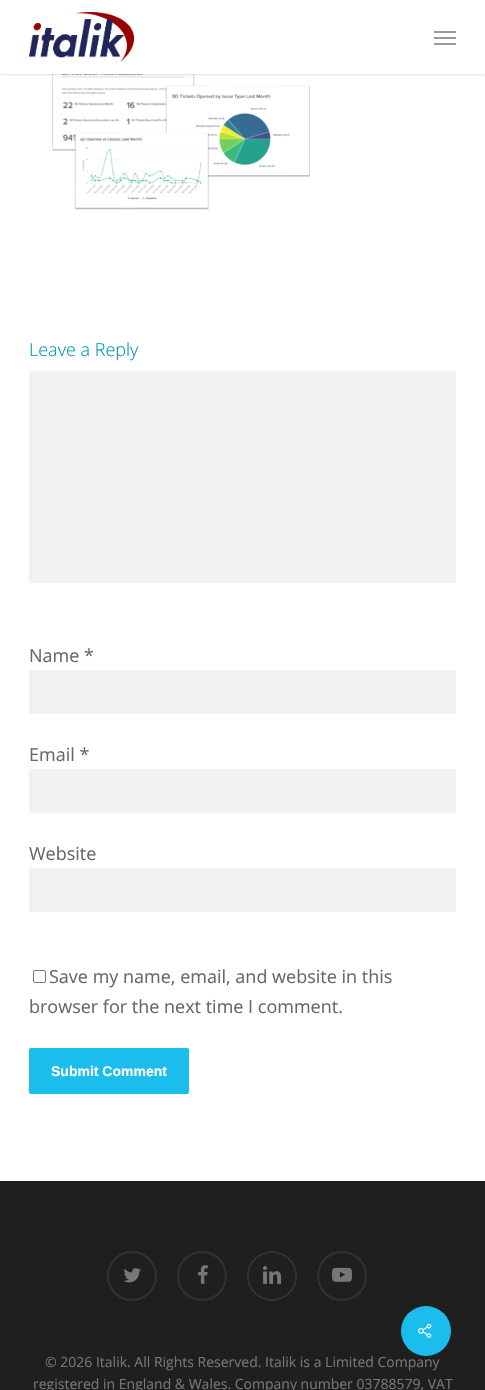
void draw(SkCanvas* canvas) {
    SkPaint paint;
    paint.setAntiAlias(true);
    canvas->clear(0xFFFFFFFF);
    canvas->drawImageRect(SkImages::DeferredFromEncodedData(SkData::MakeFromFileName("img2.png")), SkRect::MakeXYWH(52, 74, 258, 136), SkSamplingOptions());
    paint.setColor(0x38000000);
    paint.setMaskFilter(SkMaskFilter::MakeBlur(kNormal_SkBlurStyle, 1.5f));
    canvas->drawRect(SkRect::MakeXYWH(0, 0, 485, 74), paint);
    paint.setMaskFilter(nullptr);
    paint.setColor(0xFFFFFFFF);
    canvas->drawRect(SkRect::MakeXYWH(0, 0, 485, 74), paint);
    canvas->drawImageRect(SkImages::DeferredFromEncodedData(SkData::MakeFromFileName("img1.png")), SkRect::MakeXYWH(29, 12, 105, 50), SkSamplingOptions());
    paint.setColor(0xFF999999);
    canvas->drawRect(SkRect::MakeXYWH(434, 31, 22, 2), paint);
    canvas->drawRect(SkRect::MakeXYWH(434, 43, 22, 2), paint);
    canvas->drawRect(SkRect::MakeXYWH(434, 37, 22, 2), paint);
    SkFont font1(fontMgr->matchFamilyStyle("Open Sans", SkFontStyle(300, SkFontStyle::kNormal_Width, SkFontStyle::kUpright_Slant)), 18);
    font1.setSubpixel(true);
    paint.setColor(0xFF0094B3);
    canvas->drawString("Leave a Reply", 29, 356, font1, paint);
    paint.setColor(0xFFF1F1F1);
    canvas->drawRect(SkRect::MakeXYWH(29, 371, 427, 212), paint);
    SkFont font2(fontMgr->matchFamilyStyle("Open Sans", SkFontStyle::Normal()), 18);
    font2.setSubpixel(true);
    paint.setColor(0xFF676767);
    canvas->drawString("Name *", 29, 662, font2, paint);
    paint.setColor(0xFFF1F1F1);
    canvas->drawRect(SkRect::MakeXYWH(29, 670, 427, 44), paint);
    paint.setColor(0xFF676767);
    canvas->drawString("Email *", 29, 761, font2, paint);
    paint.setColor(0xFFF1F1F1);
    canvas->drawRect(SkRect::MakeXYWH(29, 769, 427, 44), paint);
    paint.setColor(0xFF676767);
    canvas->drawString("Website", 29, 860, font2, paint);
    paint.setColor(0xFFF1F1F1);
    canvas->drawRect(SkRect::MakeXYWH(29, 868, 427, 44), paint);
    paint.setStyle(SkPaint::kStroke_Style);
    paint.setStrokeWidth(1);
    paint.setColor(0xFF767676);
    canvas->drawRoundRect(SkRect::MakeXYWH(33.5f, 970.5f, 12, 12), 1.5f, 1.5f, paint);
    paint.setStyle(SkPaint::kFill_Style);
    paint.setColor(0xFF676767);
    canvas->drawString("Save my name, email, and website in this", 49, 983, font2, paint);
    canvas->drawString("browser for the next time I comment.", 29, 1013, font2, paint);
    paint.setColor(0xFF1BBDEC);
    canvas->drawRoundRect(SkRect::MakeXYWH(29, 1048, 160, 46), 2, 2, paint);
    SkFont font3(fontMgr->matchFamilyStyle("Liberation Sans", SkFontStyle::Bold()), 14);
    font3.setSubpixel(true);
    paint.setColor(0xFFFFFFFF);
    canvas->drawString("Submit Comment", 51, 1076, font3, paint);
    paint.setColor(0xFF1F1F1F);
    canvas->drawRect(SkRect::MakeXYWH(0, 1181, 485, 209), paint);
    paint.setColor(0xFF1BBDEC);
    canvas->drawCircle(426, 1331, 25, paint);
    canvas->drawImageRect(SkImages::DeferredFromEncodedData(SkData::MakeFromFileName("img3.png")), SkRect::MakeXYWH(418, 1323, 14, 15), SkSamplingOptions());
    canvas->drawImageRect(SkImages::DeferredFromEncodedData(SkData::MakeFromFileName("img4.png")), SkRect::MakeXYWH(123, 1268, 18, 15), SkSamplingOptions());
    paint.setStyle(SkPaint::kStroke_Style);
    paint.setStrokeWidth(2);
    paint.setColor(0xFF313131);
    canvas->drawCircle(132, 1276, 24, paint);
    canvas->drawImageRect(SkImages::DeferredFromEncodedData(SkData::MakeFromFileName("img5.png")), SkRect::MakeXYWH(198, 1265, 10, 19), SkSamplingOptions());
    canvas->drawCircle(202, 1276, 24, paint);
    canvas->drawImageRect(SkImages::DeferredFromEncodedData(SkData::MakeFromFileName("img6.png")), SkRect::MakeXYWH(263, 1266, 18, 18), SkSamplingOptions());
    canvas->drawCircle(272, 1276, 24, paint);
    canvas->drawImageRect(SkImages::DeferredFromEncodedData(SkData::MakeFromFileName("img7.png")), SkRect::MakeXYWH(332, 1267, 20, 15), SkSamplingOptions());
    canvas->drawCircle(342, 1276, 24, paint);
    SkFont font4(fontMgr->matchFamilyStyle("Open Sans", SkFontStyle::Normal()), 14);
    font4.setSubpixel(true);
    paint.setStyle(SkPaint::kFill_Style);
    paint.setColor(0xFF777777);
    canvas->drawString("© 2026 Italik. All Rights Reserved. Italik is a Limited Company", 45, 1367, font4, paint);
    canvas->drawString("registered in England & Wales. Company number 03788579, VAT", 33, 1389, font4, paint);
}
